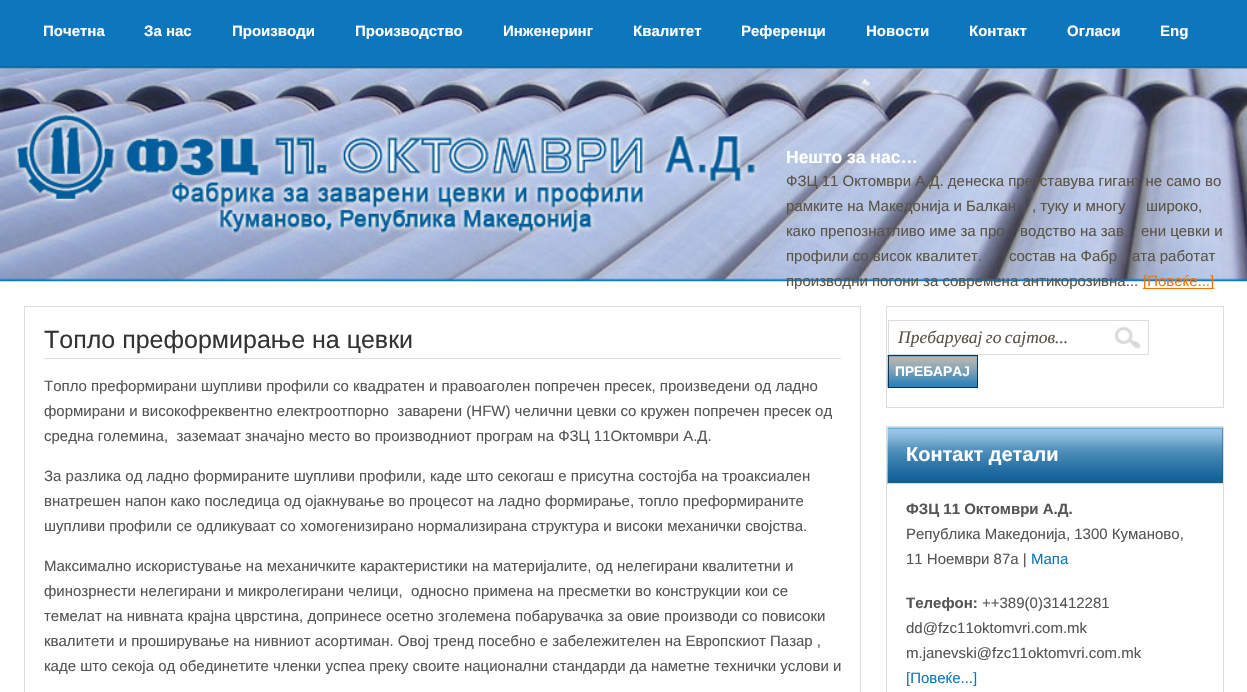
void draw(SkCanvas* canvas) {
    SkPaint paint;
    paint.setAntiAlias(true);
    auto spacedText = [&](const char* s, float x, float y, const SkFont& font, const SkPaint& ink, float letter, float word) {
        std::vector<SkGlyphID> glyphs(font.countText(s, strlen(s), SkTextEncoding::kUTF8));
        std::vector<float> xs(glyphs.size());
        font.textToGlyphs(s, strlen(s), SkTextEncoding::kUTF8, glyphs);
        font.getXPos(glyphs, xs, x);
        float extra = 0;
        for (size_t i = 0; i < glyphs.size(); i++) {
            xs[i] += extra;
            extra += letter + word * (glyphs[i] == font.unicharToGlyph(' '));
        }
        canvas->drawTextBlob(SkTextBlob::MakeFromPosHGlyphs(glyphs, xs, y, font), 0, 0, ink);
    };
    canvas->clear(0xFFFFFFFF);
    canvas->drawImageRect(SkImages::DeferredFromEncodedData(SkData::MakeFromFileName("img1.png")), SkRect::MakeXYWH(0, 0, 1247, 69), SkSamplingOptions());
    SkFont font1(fontMgr->matchFamilyStyle("Liberation Sans", SkFontStyle::Bold()), 15);
    font1.setSubpixel(true);
    paint.setColor(0xFFFFFFFF);
    canvas->drawString("Почетна", 43, 36, font1, paint);
    canvas->drawString("За нас", 144, 36, font1, paint);
    canvas->drawString("Производи", 232, 36, font1, paint);
    canvas->drawString("Производство", 355, 36, font1, paint);
    canvas->drawString("Инженеринг", 503, 36, font1, paint);
    canvas->drawString("Квалитет", 633, 36, font1, paint);
    canvas->drawString("Референци", 741, 36, font1, paint);
    canvas->drawString("Новости", 866, 36, font1, paint);
    canvas->drawString("Контакт", 969, 36, font1, paint);
    canvas->drawString("Огласи", 1067, 36, font1, paint);
    canvas->drawString("Eng", 1160, 36, font1, paint);
    canvas->drawImageRect(SkImages::DeferredFromEncodedData(SkData::MakeFromFileName("img2.png")), SkRect::MakeXYWH(0, 68, 1247, 214), SkSamplingOptions());
    SkFont font2(fontMgr->matchFamilyStyle("Liberation Sans", SkFontStyle::Bold()), 17.5f);
    font2.setSubpixel(true);
    canvas->drawString("Нешто за нас…", 786, 163, font2, paint);
    SkFont font3(fontMgr->matchFamilyStyle("Liberation Sans", SkFontStyle::Normal()), 15);
    font3.setSubpixel(true);
    paint.setColor(0xFF5A5346);
    canvas->drawString("ФЗЦ 11 Октомври А.Д. денеска претставува гигант не само во", 786, 186, font3, paint);
    canvas->drawString("рамките на Македонија и Балкан", 786, 211, font3, paint);
    canvas->drawString(", туку и многу", 1032, 211, font3, paint);
    canvas->drawString("широко,", 1146, 211, font3, paint);
    canvas->drawString("како препознатливо име за про", 786, 236, font3, paint);
    canvas->drawString("водство на зав", 1020, 236, font3, paint);
    canvas->drawString("ени цевки и", 1141, 236, font3, paint);
    canvas->drawString("профили со висок квалитет.", 786, 261, font3, paint);
    canvas->drawString("состав на Фабр", 1009, 261, font3, paint);
    canvas->drawString("ата работат", 1132, 261, font3, paint);
    canvas->drawString("производни погони за современа антикорозивна...", 786, 286, font3, paint);
    paint.setColor(0xFFF27406);
    canvas->drawRect(SkRect::MakeXYWH(1143, 288, 71, 1), paint);
    canvas->drawString("[Повеќе...]", 1143, 286, font3, paint);
    paint.setStyle(SkPaint::kStroke_Style);
    paint.setStrokeWidth(1);
    paint.setColor(0xFFDDDDDD);
    canvas->drawRect(SkRect::MakeXYWH(24.5f, 306.5f, 836, 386), paint);
    paint.setStyle(SkPaint::kFill_Style);
    canvas->drawRect(SkRect::MakeXYWH(44, 358, 797, 1), paint);
    SkFont font4(fontMgr->matchFamilyStyle("Liberation Sans", SkFontStyle::Normal()), 25);
    font4.setSubpixel(true);
    paint.setColor(0xFF333333);
    canvas->drawString("Топло преформирање на цевки", 44, 348, font4, paint);
    paint.setColor(0xFF555555);
    canvas->drawString("Топло преформирани шупливи профили со квадратен и правоаголен попречен пресек, произведени од ладно", 44, 391, font3, paint);
    canvas->drawString("формирани и високофреквентно електроотпорно  заварени (HFW) челични цевки со кружен попречен пресек од", 44, 416, font3, paint);
    canvas->drawString("средна големина,  заземаат значајно место во производниот програм на ФЗЦ 11Октомври А.Д.", 44, 441, font3, paint);
    canvas->drawString("За разлика од ладно формираните шупливи профили, каде што секогаш е присутна состојба на троаксиален", 44, 481, font3, paint);
    canvas->drawString("внатрешен напон како последица од ојакнување во процесот на ладно формирање, топло преформираните", 44, 506, font3, paint);
    canvas->drawString("шупливи профили се одликуваат со хомогенизирано нормализирана структура и високи механички својства.", 44, 531, font3, paint);
    canvas->drawString("Максимално искористување на механичките карактеристики на материјалите, од нелегирани квалитетни и", 44, 571, font3, paint);
    canvas->drawString("финозрнести нелегирани и микролегирани челици,  односно примена на пресметки во конструкции кои се", 44, 596, font3, paint);
    canvas->drawString("темелат на нивната крајна цврстина, допринесе осетно зголемена побарувачка за овие производи со повисоки", 44, 621, font3, paint);
    canvas->drawString("квалитети и проширување на нивниот асортиман. Овој тренд посебно е забележителен на Европскиот Пазар ,", 44, 646, font3, paint);
    canvas->drawString("каде што секоја од обединетите членки успеа преку своите национални стандарди да наметне технички услови и", 44, 671, font3, paint);
    paint.setStyle(SkPaint::kStroke_Style);
    paint.setColor(0xFFDDDDDD);
    canvas->drawRect(SkRect::MakeXYWH(886.5f, 306.5f, 337, 101), paint);
    canvas->drawImageRect(SkImages::DeferredFromEncodedData(SkData::MakeFromFileName("img3.png")), SkRect::MakeXYWH(1114, 326, 27, 23), SkSamplingOptions());
    canvas->drawRect(SkRect::MakeXYWH(888.5f, 320.5f, 260, 34), paint);
    SkFont font5(fontMgr->matchFamilyStyle("Liberation Serif", SkFontStyle::Italic()), 17.5f);
    font5.setSubpixel(true);
    paint.setStyle(SkPaint::kFill_Style);
    paint.setColor(0xFF5A5346);
    spacedText("Пребарувај го сајтов...", 898, 343, font5, paint, 0, -1);
    canvas->drawImageRect(SkImages::DeferredFromEncodedData(SkData::MakeFromFileName("img4.png")), SkRect::MakeXYWH(887, 355, 90, 33), SkSamplingOptions());
    paint.setStyle(SkPaint::kStroke_Style);
    paint.setColor(0xFF0D3653);
    canvas->drawRect(SkRect::MakeXYWH(888.5f, 355.5f, 89, 32), paint);
    SkFont font6(fontMgr->matchFamilyStyle("Liberation Sans", SkFontStyle::Bold()), 13.75f);
    font6.setSubpixel(true);
    paint.setStyle(SkPaint::kFill_Style);
    paint.setColor(0xFFFFFFFF);
    canvas->drawString("ПРЕБАРАЈ", 895, 376, font6, paint);
    paint.setStyle(SkPaint::kStroke_Style);
    paint.setColor(0xFFDDDDDD);
    canvas->drawRect(SkRect::MakeXYWH(886.5f, 426.5f, 337, 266), paint);
    paint.setStyle(SkPaint::kFill_Style);
    paint.setColor(0xFF0F6097);
    canvas->drawRect(SkRect::MakeXYWH(1222, 428, 1, 55), paint);
    canvas->drawImageRect(SkImages::DeferredFromEncodedData(SkData::MakeFromFileName("img5.png")), SkRect::MakeXYWH(887, 427, 336, 57), SkSamplingOptions());
    paint.setColor(0xFFDDDDDD);
    canvas->drawRect(SkRect::MakeXYWH(888, 483, 335, 1), paint);
    SkFont font7(fontMgr->matchFamilyStyle("Liberation Sans", SkFontStyle::Bold()), 20);
    font7.setSubpixel(true);
    paint.setColor(0xFFFFFFFF);
    canvas->drawString("Контакт детали", 906, 461, font7, paint);
    paint.setColor(0xFF555555);
    canvas->drawString("ФЗЦ 11 Октомври А.Д.", 906, 514, font1, paint);
    canvas->drawString("Република Македонија, 1300 Куманово,", 906, 539, font3, paint);
    canvas->drawString("11 Ноември 87a |", 906, 564, font3, paint);
    paint.setColor(0xFF0E76BD);
    canvas->drawString("Мапа", 1031, 564, font3, paint);
    paint.setColor(0xFF555555);
    canvas->drawString("Телефон:", 906, 608, font1, paint);
    canvas->drawString("++389(0)31412281", 982, 608, font3, paint);
    canvas->drawString("dd@fzc11oktomvri.com.mk", 906, 633, font3, paint);
    canvas->drawString("m.janevski@fzc11oktomvri.com.mk", 906, 658, font3, paint);
    paint.setColor(0xFF0E76BD);
    canvas->drawString("[Повеќе...]", 906, 683, font3, paint);
}
